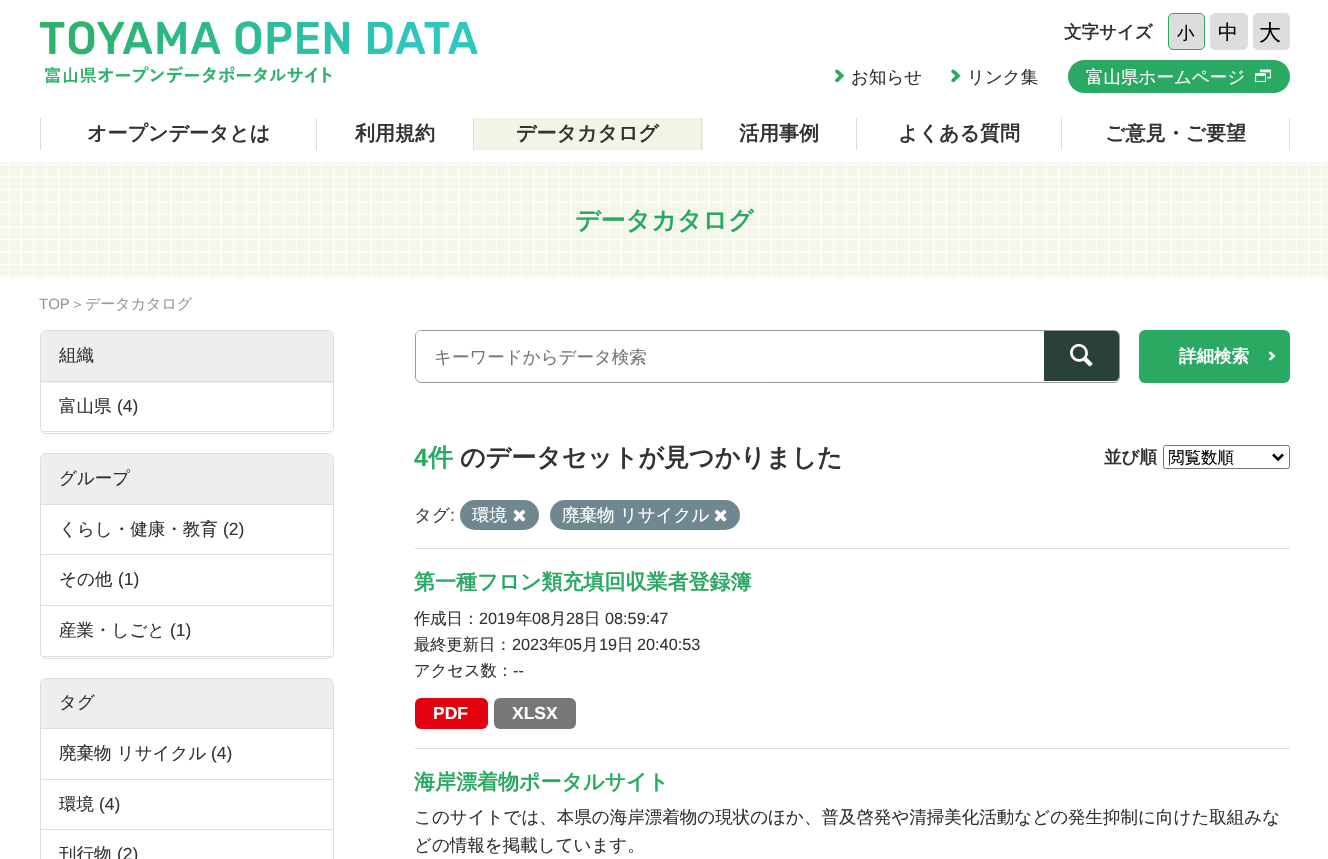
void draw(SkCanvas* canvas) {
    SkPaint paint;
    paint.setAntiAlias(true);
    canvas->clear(0xFFFFFFFF);
    canvas->drawImageRect(SkImages::DeferredFromEncodedData(SkData::MakeFromFileName("img1.png")), SkRect::MakeXYWH(40, 21, 438, 63), SkSamplingOptions());
    SkFont font1(fontMgr->matchFamilyStyle("WenQuanYi Zen Hei", SkFontStyle::Bold()), 17.5f);
    font1.setSubpixel(true);
    paint.setColor(0xFF333333);
    canvas->drawString("文字サイズ", 1064, 38, font1, paint);
    paint.setColor(0xFFDDDDDD);
    canvas->drawRoundRect(SkRect::MakeXYWH(1168.5f, 13.5f, 36, 36), 4.5f, 4.5f, paint);
    paint.setStyle(SkPaint::kStroke_Style);
    paint.setStrokeWidth(1);
    paint.setColor(0xFF29A961);
    canvas->drawRoundRect(SkRect::MakeXYWH(1168.5f, 13.5f, 36, 36), 4.5f, 4.5f, paint);
    SkFont font2(fontMgr->matchFamilyStyle("WenQuanYi Zen Hei", SkFontStyle(500, SkFontStyle::kNormal_Width, SkFontStyle::kUpright_Slant)), 17.5f);
    font2.setSubpixel(true);
    paint.setStyle(SkPaint::kFill_Style);
    paint.setColor(0xFF000000);
    canvas->drawString("小", 1177, 39, font2, paint);
    paint.setColor(0xFFDDDDDD);
    canvas->drawRoundRect(SkRect::MakeXYWH(1210.5f, 13.5f, 37, 36), 4.5f, 4.5f, paint);
    paint.setStyle(SkPaint::kStroke_Style);
    canvas->drawRoundRect(SkRect::MakeXYWH(1210.5f, 13.5f, 37, 36), 4.5f, 4.5f, paint);
    SkFont font3(fontMgr->matchFamilyStyle("WenQuanYi Zen Hei", SkFontStyle(500, SkFontStyle::kNormal_Width, SkFontStyle::kUpright_Slant)), 20);
    font3.setSubpixel(true);
    paint.setStyle(SkPaint::kFill_Style);
    paint.setColor(0xFF000000);
    canvas->drawString("中", 1218, 39, font3, paint);
    paint.setColor(0xFFDDDDDD);
    canvas->drawRoundRect(SkRect::MakeXYWH(1253.5f, 13.5f, 36, 36), 4.5f, 4.5f, paint);
    paint.setStyle(SkPaint::kStroke_Style);
    canvas->drawRoundRect(SkRect::MakeXYWH(1253.5f, 13.5f, 36, 36), 4.5f, 4.5f, paint);
    SkFont font4(fontMgr->matchFamilyStyle("WenQuanYi Zen Hei", SkFontStyle(500, SkFontStyle::kNormal_Width, SkFontStyle::kUpright_Slant)), 22);
    font4.setSubpixel(true);
    paint.setStyle(SkPaint::kFill_Style);
    paint.setColor(0xFF000000);
    canvas->drawString("大", 1259, 40, font4, paint);
    canvas->drawImageRect(SkImages::DeferredFromEncodedData(SkData::MakeFromFileName("img2.png")), SkRect::MakeXYWH(835, 69, 10, 14), SkSamplingOptions());
    paint.setColor(0xFF333333);
    canvas->drawString("お知らせ", 851, 83, font2, paint);
    canvas->drawImageRect(SkImages::DeferredFromEncodedData(SkData::MakeFromFileName("img3.png")), SkRect::MakeXYWH(951, 69, 10, 14), SkSamplingOptions());
    canvas->drawString("リンク集", 967, 83, font2, paint);
    paint.setColor(0xFF29A961);
    canvas->drawRoundRect(SkRect::MakeXYWH(1068, 60, 222, 33), 16.5f, 16.5f, paint);
    paint.setColor(0xFFFFFFFF);
    canvas->drawString("富山県ホームページ", 1086, 83, font2, paint);
    canvas->drawImageRect(SkImages::DeferredFromEncodedData(SkData::MakeFromFileName("img4.png")), SkRect::MakeXYWH(1255, 69, 16, 14), SkSamplingOptions());
    paint.setColor(0xFFDDDDDD);
    canvas->drawRect(SkRect::MakeXYWH(316, 118, 1, 32), paint);
    canvas->drawRect(SkRect::MakeXYWH(40, 118, 1, 32), paint);
    SkFont font5(fontMgr->matchFamilyStyle("WenQuanYi Zen Hei", SkFontStyle::Bold()), 20);
    font5.setSubpixel(true);
    paint.setColor(0xFF333333);
    canvas->drawString("オープンデータとは", 87, 140, font5, paint);
    paint.setColor(0xFFDDDDDD);
    canvas->drawRect(SkRect::MakeXYWH(473, 118, 1, 32), paint);
    paint.setColor(0xFF333333);
    canvas->drawString("利用規約", 355, 140, font5, paint);
    paint.setColor(0xFFF2F4E6);
    canvas->drawRect(SkRect::MakeXYWH(474, 118, 229, 32), paint);
    paint.setColor(0xFFDDDDDD);
    canvas->drawRect(SkRect::MakeXYWH(701, 118, 1, 32), paint);
    paint.setColor(0xFF333333);
    canvas->drawString("データカタログ", 516, 140, font5, paint);
    paint.setColor(0xFFDDDDDD);
    canvas->drawRect(SkRect::MakeXYWH(856, 118, 1, 32), paint);
    paint.setColor(0xFF333333);
    canvas->drawString("活用事例", 739, 140, font5, paint);
    paint.setColor(0xFFDDDDDD);
    canvas->drawRect(SkRect::MakeXYWH(1061, 118, 1, 32), paint);
    paint.setColor(0xFF333333);
    canvas->drawString("よくある質問", 898, 140, font5, paint);
    paint.setColor(0xFFDDDDDD);
    canvas->drawRect(SkRect::MakeXYWH(1289, 118, 1, 32), paint);
    paint.setColor(0xFF333333);
    canvas->drawString("ご意見・ご要望", 1105, 140, font5, paint);
    canvas->drawImageRect(SkImages::DeferredFromEncodedData(SkData::MakeFromFileName("img5.png")), SkRect::MakeXYWH(0, 162, 1328, 116), SkSamplingOptions());
    SkFont font6(fontMgr->matchFamilyStyle("WenQuanYi Zen Hei", SkFontStyle::Bold()), 25);
    font6.setSubpixel(true);
    paint.setColor(0xFF29A961);
    canvas->drawString("データカタログ", 575, 229, font6, paint);
    SkFont font7(fontMgr->matchFamilyStyle("Liberation Sans", SkFontStyle::Normal()), 15);
    font7.setSubpixel(true);
    paint.setColor(0xFF999999);
    canvas->drawString("TOP", 39, 309, font7, paint);
    SkFont font8(fontMgr->matchFamilyStyle("WenQuanYi Zen Hei", SkFontStyle(500, SkFontStyle::kNormal_Width, SkFontStyle::kUpright_Slant)), 15);
    font8.setSubpixel(true);
    canvas->drawString("＞データカタログ", 70, 309, font8, paint);
    paint.setStyle(SkPaint::kStroke_Style);
    paint.setColor(0xFFDDDDDD);
    canvas->drawRoundRect(SkRect::MakeXYWH(40.5f, 330.5f, 293, 103), 5.5f, 5.5f, paint);
    paint.setStyle(SkPaint::kFill_Style);
    paint.setColor(0xFFEEEEEE);
    canvas->drawPath(SkPathBuilder().moveTo(46, 331).lineTo(328, 331).cubicTo(331, 331, 333, 333, 333, 336).lineTo(333, 383).lineTo(41, 383).lineTo(41, 336).cubicTo(41, 333, 43, 331, 46, 331).close().detach(), paint);
    paint.setColor(0xFFDDDDDD);
    canvas->drawRect(SkRect::MakeXYWH(41, 381, 292, 1), paint);
    paint.setColor(0xFF333333);
    canvas->drawString("組織", 59, 361, font2, paint);
    canvas->drawString("富山県", 59, 412, font2, paint);
    SkFont font9(fontMgr->matchFamilyStyle("Liberation Sans", SkFontStyle::Normal()), 17.5f);
    font9.setSubpixel(true);
    canvas->drawString("(4)", 117, 412, font9, paint);
    canvas->save();
    canvas->clipPath(SkPathBuilder().moveTo(46, 331).lineTo(328, 331).cubicTo(331, 331, 333, 333, 333, 336).lineTo(333, 428).cubicTo(333, 431, 331, 433, 328, 433).lineTo(46, 433).cubicTo(43, 433, 41, 431, 41, 428).lineTo(41, 336).cubicTo(41, 333, 43, 331, 46, 331).close().detach(), true);
    paint.setColor(0xFFDDDDDD);
    canvas->drawRect(SkRect::MakeXYWH(41, 431, 292, 1), paint);
    canvas->restore();
    paint.setStyle(SkPaint::kStroke_Style);
    canvas->drawRoundRect(SkRect::MakeXYWH(40.5f, 453.5f, 293, 205), 5.5f, 5.5f, paint);
    paint.setStyle(SkPaint::kFill_Style);
    paint.setColor(0xFFEEEEEE);
    canvas->drawPath(SkPathBuilder().moveTo(46, 454).lineTo(328, 454).cubicTo(331, 454, 333, 456, 333, 459).lineTo(333, 505).lineTo(41, 505).lineTo(41, 459).cubicTo(41, 456, 43, 454, 46, 454).close().detach(), paint);
    paint.setColor(0xFFDDDDDD);
    canvas->drawRect(SkRect::MakeXYWH(41, 504, 292, 1), paint);
    paint.setColor(0xFF333333);
    canvas->drawString("グループ", 59, 484, font2, paint);
    canvas->drawString("くらし・健康・教育", 59, 535, font2, paint);
    canvas->drawString("(2)", 223, 535, font9, paint);
    paint.setColor(0xFFDDDDDD);
    canvas->drawRect(SkRect::MakeXYWH(41, 554, 292, 1), paint);
    paint.setColor(0xFF333333);
    canvas->drawString("その他", 59, 585, font2, paint);
    canvas->drawString("(1)", 118, 585, font9, paint);
    paint.setColor(0xFFDDDDDD);
    canvas->drawRect(SkRect::MakeXYWH(41, 605, 292, 1), paint);
    paint.setColor(0xFF333333);
    canvas->drawString("産業・しごと", 59, 636, font2, paint);
    canvas->drawString("(1)", 170, 636, font9, paint);
    canvas->save();
    canvas->clipPath(SkPathBuilder().moveTo(46, 454).lineTo(328, 454).cubicTo(331, 454, 333, 456, 333, 459).lineTo(333, 653).cubicTo(333, 656, 331, 658, 328, 658).lineTo(46, 658).cubicTo(43, 658, 41, 656, 41, 653).lineTo(41, 459).cubicTo(41, 456, 43, 454, 46, 454).close().detach(), true);
    paint.setColor(0xFFDDDDDD);
    canvas->drawRect(SkRect::MakeXYWH(41, 656, 292, 1), paint);
    canvas->restore();
    paint.setStyle(SkPaint::kStroke_Style);
    canvas->drawRoundRect(SkRect::MakeXYWH(40.5f, 678.5f, 293, 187), 5.5f, 5.5f, paint);
    paint.setStyle(SkPaint::kFill_Style);
    paint.setColor(0xFFEEEEEE);
    canvas->drawPath(SkPathBuilder().moveTo(46, 679).lineTo(328, 679).cubicTo(331, 679, 333, 681, 333, 684).lineTo(333, 729).lineTo(41, 729).lineTo(41, 684).cubicTo(41, 681, 43, 679, 46, 679).close().detach(), paint);
    paint.setColor(0xFFDDDDDD);
    canvas->drawRect(SkRect::MakeXYWH(41, 728, 292, 1), paint);
    paint.setColor(0xFF333333);
    canvas->drawString("タグ", 59, 708, font2, paint);
    canvas->drawString("廃棄物 リサイクル", 59, 759, font2, paint);
    canvas->drawString("(4)", 211, 759, font9, paint);
    paint.setColor(0xFFDDDDDD);
    canvas->drawRect(SkRect::MakeXYWH(41, 779, 292, 1), paint);
    paint.setColor(0xFF333333);
    canvas->drawString("環境", 59, 810, font2, paint);
    canvas->drawString("(4)", 99, 810, font9, paint);
    paint.setColor(0xFFDDDDDD);
    canvas->drawRect(SkRect::MakeXYWH(41, 829, 292, 1), paint);
    paint.setColor(0xFF333333);
    canvas->drawString("刊行物", 59, 860, font2, paint);
    canvas->drawString("(2)", 117, 860, font9, paint);
    paint.setStyle(SkPaint::kStroke_Style);
    paint.setColor(0xFF999999);
    canvas->drawRoundRect(SkRect::MakeXYWH(415.5f, 330.5f, 704, 52), 5.5f, 5.5f, paint);
    paint.setStyle(SkPaint::kFill_Style);
    paint.setColor(0xFFFFFFFF);
    canvas->drawPath(SkPathBuilder().moveTo(421, 331).lineTo(1044, 331).lineTo(1044, 381).lineTo(421, 381).cubicTo(418, 381, 416, 379, 416, 376).lineTo(416, 336).cubicTo(416, 333, 418, 331, 421, 331).close().detach(), paint);
    paint.setColor(0xFF757575);
    canvas->drawString("キーワードからデータ検索", 434, 363, font2, paint);
    paint.setColor(0xFF29413A);
    canvas->drawPath(SkPathBuilder().moveTo(1044, 331).lineTo(1114, 331).cubicTo(1117, 331, 1119, 333, 1119, 336).lineTo(1119, 376).cubicTo(1119, 379, 1117, 381, 1114, 381).lineTo(1044, 381).close().detach(), paint);
    canvas->drawImageRect(SkImages::DeferredFromEncodedData(SkData::MakeFromFileName("img6.png")), SkRect::MakeXYWH(1070, 343, 23, 24), SkSamplingOptions());
    paint.setColor(0xFF29A961);
    canvas->drawRoundRect(SkRect::MakeXYWH(1139, 330, 151, 53), 6, 6, paint);
    paint.setColor(0xFFFFFFFF);
    canvas->drawString("詳細検索", 1179, 362, font1, paint);
    canvas->drawImageRect(SkImages::DeferredFromEncodedData(SkData::MakeFromFileName("img7.png")), SkRect::MakeXYWH(1269, 351, 7, 10), SkSamplingOptions());
    SkFont font10(fontMgr->matchFamilyStyle("Liberation Sans", SkFontStyle::Bold()), 25);
    font10.setSubpixel(true);
    paint.setColor(0xFF29A961);
    canvas->drawString("4", 414, 466, font10, paint);
    canvas->drawString("件", 428, 466, font6, paint);
    paint.setColor(0xFF333333);
    canvas->drawString("のデータセットが見つかりました", 460, 466, font6, paint);
    canvas->drawString("並び順", 1104, 463, font1, paint);
    paint.setStyle(SkPaint::kStroke_Style);
    paint.setColor(0xFF767676);
    canvas->drawRoundRect(SkRect::MakeXYWH(1163.5f, 445.5f, 126, 23), 2, 2, paint);
    paint.setStrokeWidth(2.5f);
    paint.setColor(0xFF000000);
    canvas->drawPath(SkPathBuilder().moveTo(1273, 454.5f).lineTo(1278, 459.5f).lineTo(1283, 454.5f).detach(), paint);
    canvas->save();
    canvas->clipRect(SkRect::MakeXYWH(1169, 446, 100, 22));
    SkFont font11(fontMgr->matchFamilyStyle("WenQuanYi Zen Hei", SkFontStyle(500, SkFontStyle::kNormal_Width, SkFontStyle::kUpright_Slant)), 16.5f);
    font11.setSubpixel(true);
    paint.setStyle(SkPaint::kFill_Style);
    canvas->drawString("閲覧数順", 1168, 463, font11, paint);
    canvas->restore();
    paint.setColor(0xFF444444);
    canvas->drawString("タグ", 414, 521, font2, paint);
    canvas->drawString(":", 450, 521, font9, paint);
    paint.setColor(0xFF6F8890);
    canvas->drawRoundRect(SkRect::MakeXYWH(460, 500, 79, 30), 15, 15, paint);
    paint.setColor(0xFFFFFFFF);
    canvas->drawString("環境", 472, 521, font2, paint);
    canvas->drawImageRect(SkImages::DeferredFromEncodedData(SkData::MakeFromFileName("img8.png")), SkRect::MakeXYWH(513, 509, 13, 13), SkSamplingOptions());
    paint.setColor(0xFF6F8890);
    canvas->drawRoundRect(SkRect::MakeXYWH(550, 500, 190, 30), 15, 15, paint);
    paint.setColor(0xFFFFFFFF);
    canvas->drawString("廃棄物 リサイクル", 562, 521, font2, paint);
    canvas->drawImageRect(SkImages::DeferredFromEncodedData(SkData::MakeFromFileName("img9.png")), SkRect::MakeXYWH(714, 509, 13, 13), SkSamplingOptions());
    paint.setColor(0xFFDDDDDD);
    canvas->drawRect(SkRect::MakeXYWH(415, 548, 875, 1), paint);
    canvas->drawRect(SkRect::MakeXYWH(415, 748, 875, 1), paint);
    SkFont font12(fontMgr->matchFamilyStyle("WenQuanYi Zen Hei", SkFontStyle::Bold()), 21);
    font12.setSubpixel(true);
    paint.setColor(0xFF29A961);
    canvas->drawString("第一種フロン類充填回収業者登録簿", 414, 589, font12, paint);
    SkFont font13(fontMgr->matchFamilyStyle("WenQuanYi Zen Hei", SkFontStyle(500, SkFontStyle::kNormal_Width, SkFontStyle::kUpright_Slant)), 16.25f);
    font13.setSubpixel(true);
    paint.setColor(0xFF333333);
    canvas->drawString("作成日：", 414, 624, font13, paint);
    SkFont font14(fontMgr->matchFamilyStyle("Liberation Sans", SkFontStyle::Normal()), 16.25f);
    font14.setSubpixel(true);
    canvas->drawString("2019", 479, 624, font14, paint);
    canvas->drawString("年", 516, 624, font13, paint);
    canvas->drawString("08", 532, 624, font14, paint);
    canvas->drawString("月", 550, 624, font13, paint);
    canvas->drawString("28", 566, 624, font14, paint);
    canvas->drawString("日", 584, 624, font13, paint);
    canvas->drawString("08:59:47", 605, 624, font14, paint);
    canvas->drawString("最終更新日：", 414, 650, font13, paint);
    canvas->drawString("2023", 512, 650, font14, paint);
    canvas->drawString("年", 548, 650, font13, paint);
    canvas->drawString("05", 564, 650, font14, paint);
    canvas->drawString("月", 582, 650, font13, paint);
    canvas->drawString("19", 599, 650, font14, paint);
    canvas->drawString("日", 617, 650, font13, paint);
    canvas->drawString("20:40:53", 637, 650, font14, paint);
    canvas->drawString("アクセス数：", 414, 676, font13, paint);
    canvas->drawString("--", 513, 676, font14, paint);
    paint.setColor(0xFFE3000F);
    canvas->drawRoundRect(SkRect::MakeXYWH(415, 698, 73, 31), 6, 6, paint);
    SkFont font15(fontMgr->matchFamilyStyle("Liberation Sans", SkFontStyle::Bold()), 17.5f);
    font15.setSubpixel(true);
    paint.setColor(0xFFFFFFFF);
    canvas->drawString("PDF", 433, 719, font15, paint);
    paint.setColor(0xFF777777);
    canvas->drawRoundRect(SkRect::MakeXYWH(494, 698, 82, 31), 6, 6, paint);
    paint.setColor(0xFFFFFFFF);
    canvas->drawString("XLSX", 512, 719, font15, paint);
    paint.setColor(0xFF29A961);
    canvas->drawString("海岸漂着物ポータルサイト", 414, 789, font12, paint);
    paint.setColor(0xFF333333);
    canvas->drawString("このサイトでは、本県の海岸漂着物の現状のほか、普及啓発や清掃美化活動などの発生抑制に向けた取組みな", 414, 823, font2, paint);
    canvas->drawString("どの情報を掲載しています。", 414, 851, font2, paint);
}
